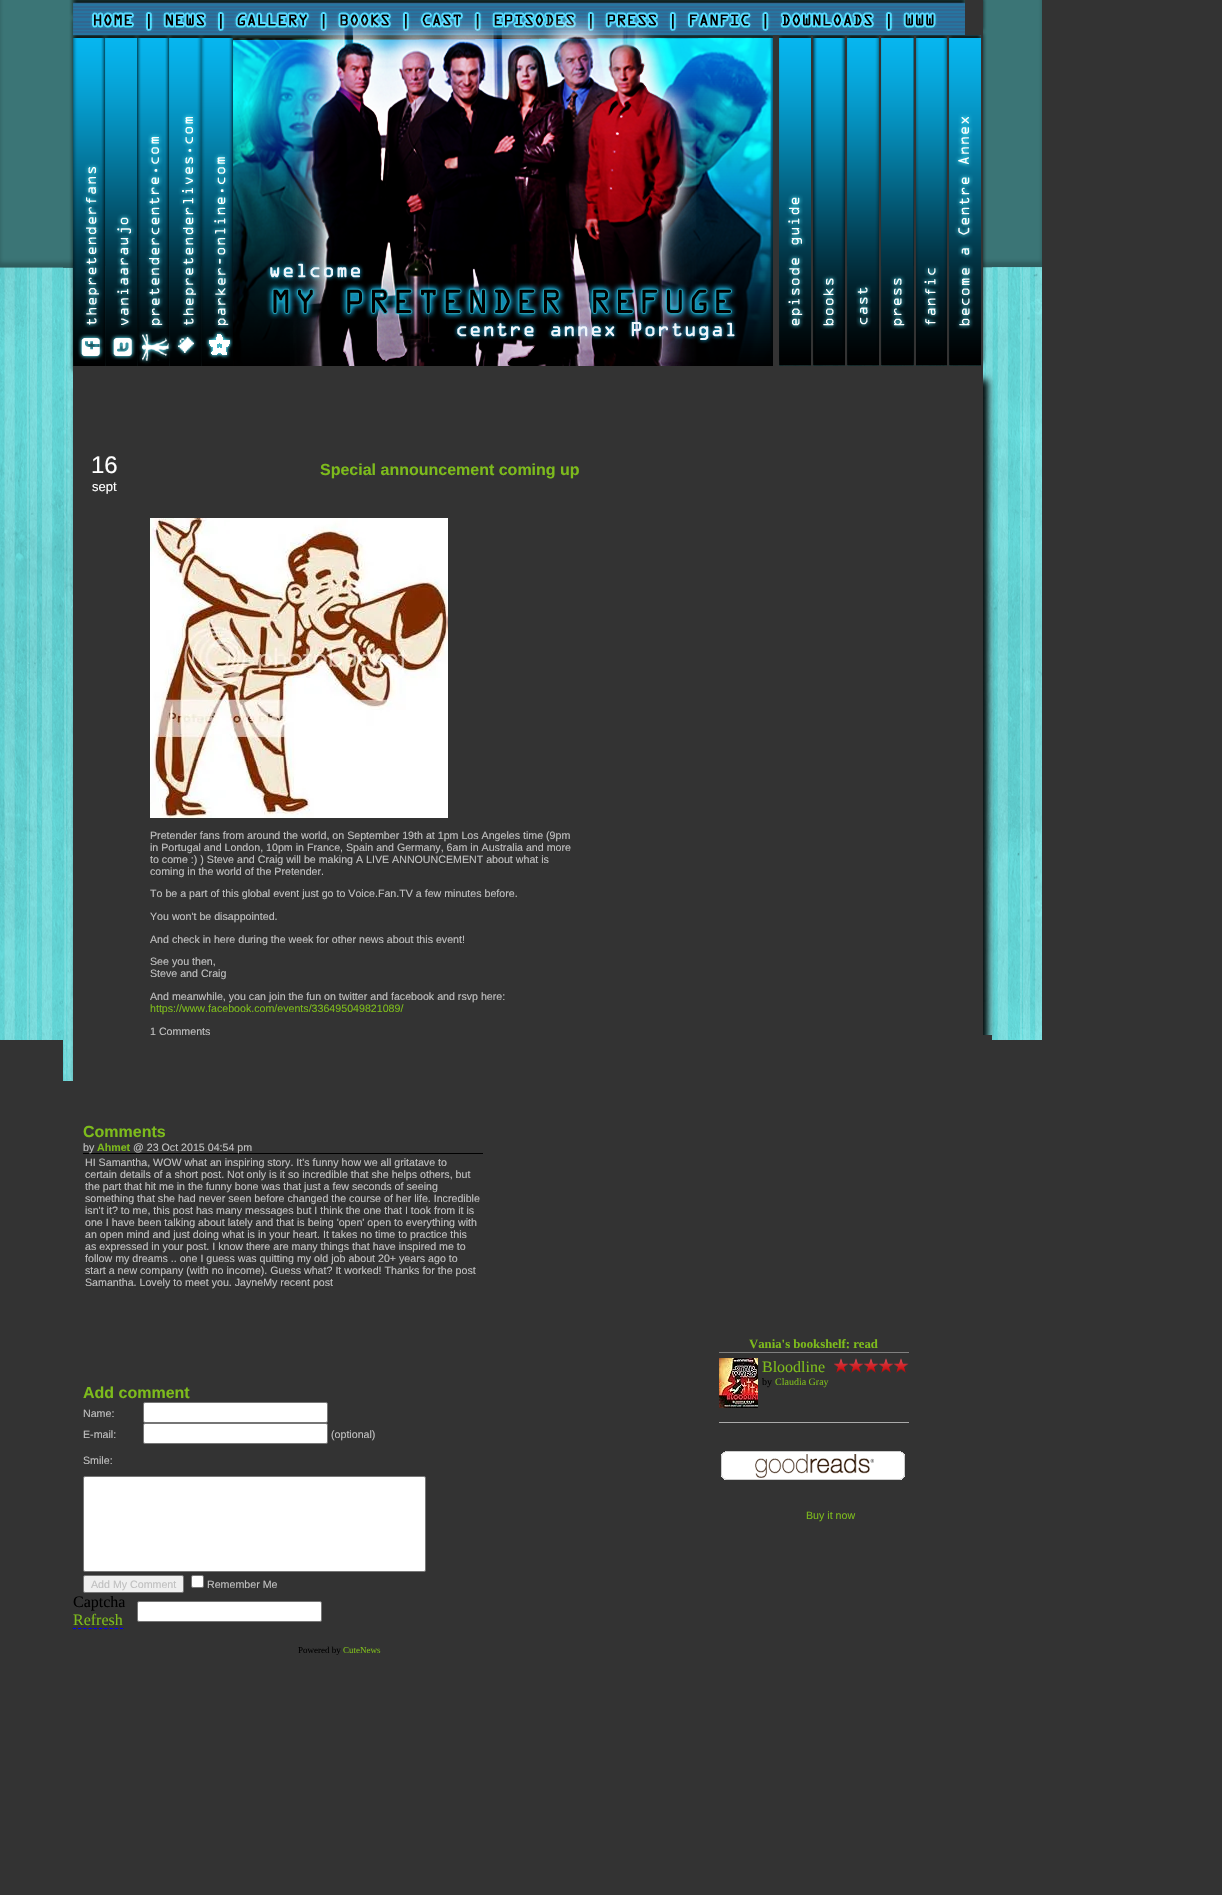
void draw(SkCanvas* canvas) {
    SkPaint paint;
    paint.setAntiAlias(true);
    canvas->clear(0xFF333333);
    canvas->drawImageRect(SkImages::DeferredFromEncodedData(SkData::MakeFromFileName("img1.png")), SkRect::MakeXYWH(0, 0, 63, 1040), SkSamplingOptions());
    canvas->drawImageRect(SkImages::DeferredFromEncodedData(SkData::MakeFromFileName("img2.png")), SkRect::MakeXYWH(63, 0, 10, 1081), SkSamplingOptions());
    canvas->drawImageRect(SkImages::DeferredFromEncodedData(SkData::MakeFromFileName("img3.png")), SkRect::MakeXYWH(73, 0, 892, 35), SkSamplingOptions());
    canvas->drawImageRect(SkImages::DeferredFromEncodedData(SkData::MakeFromFileName("img4.png")), SkRect::MakeXYWH(983, 0, 9, 1035), SkSamplingOptions());
    canvas->drawImageRect(SkImages::DeferredFromEncodedData(SkData::MakeFromFileName("img5.png")), SkRect::MakeXYWH(992, 0, 50, 1040), SkSamplingOptions());
    canvas->drawImageRect(SkImages::DeferredFromEncodedData(SkData::MakeFromFileName("img6.png")), SkRect::MakeXYWH(73, 35, 700, 3), SkSamplingOptions());
    canvas->drawImageRect(SkImages::DeferredFromEncodedData(SkData::MakeFromFileName("img7.png")), SkRect::MakeXYWH(779, 35, 32, 3), SkSamplingOptions());
    canvas->drawImageRect(SkImages::DeferredFromEncodedData(SkData::MakeFromFileName("img8.png")), SkRect::MakeXYWH(779, 38, 32, 328), SkSamplingOptions());
    canvas->drawImageRect(SkImages::DeferredFromEncodedData(SkData::MakeFromFileName("img9.png")), SkRect::MakeXYWH(813, 35, 32, 3), SkSamplingOptions());
    canvas->drawImageRect(SkImages::DeferredFromEncodedData(SkData::MakeFromFileName("img10.png")), SkRect::MakeXYWH(813, 38, 32, 328), SkSamplingOptions());
    canvas->drawImageRect(SkImages::DeferredFromEncodedData(SkData::MakeFromFileName("img11.png")), SkRect::MakeXYWH(847, 35, 32, 3), SkSamplingOptions());
    canvas->drawImageRect(SkImages::DeferredFromEncodedData(SkData::MakeFromFileName("img12.png")), SkRect::MakeXYWH(847, 38, 32, 328), SkSamplingOptions());
    canvas->drawImageRect(SkImages::DeferredFromEncodedData(SkData::MakeFromFileName("img13.png")), SkRect::MakeXYWH(881, 35, 33, 3), SkSamplingOptions());
    canvas->drawImageRect(SkImages::DeferredFromEncodedData(SkData::MakeFromFileName("img14.png")), SkRect::MakeXYWH(881, 38, 33, 328), SkSamplingOptions());
    canvas->drawImageRect(SkImages::DeferredFromEncodedData(SkData::MakeFromFileName("img15.png")), SkRect::MakeXYWH(916, 35, 31, 3), SkSamplingOptions());
    canvas->drawImageRect(SkImages::DeferredFromEncodedData(SkData::MakeFromFileName("img16.png")), SkRect::MakeXYWH(916, 38, 31, 328), SkSamplingOptions());
    canvas->drawImageRect(SkImages::DeferredFromEncodedData(SkData::MakeFromFileName("img17.png")), SkRect::MakeXYWH(949, 35, 32, 3), SkSamplingOptions());
    canvas->drawImageRect(SkImages::DeferredFromEncodedData(SkData::MakeFromFileName("img18.png")), SkRect::MakeXYWH(949, 38, 32, 328), SkSamplingOptions());
    canvas->drawImageRect(SkImages::DeferredFromEncodedData(SkData::MakeFromFileName("img19.png")), SkRect::MakeXYWH(73, 38, 32, 328), SkSamplingOptions());
    canvas->drawImageRect(SkImages::DeferredFromEncodedData(SkData::MakeFromFileName("img20.png")), SkRect::MakeXYWH(105, 38, 32, 328), SkSamplingOptions());
    canvas->drawImageRect(SkImages::DeferredFromEncodedData(SkData::MakeFromFileName("img21.png")), SkRect::MakeXYWH(137, 38, 32, 328), SkSamplingOptions());
    canvas->drawImageRect(SkImages::DeferredFromEncodedData(SkData::MakeFromFileName("img22.png")), SkRect::MakeXYWH(169, 38, 32, 328), SkSamplingOptions());
    canvas->drawImageRect(SkImages::DeferredFromEncodedData(SkData::MakeFromFileName("img23.png")), SkRect::MakeXYWH(201, 38, 32, 328), SkSamplingOptions());
    canvas->drawImageRect(SkImages::DeferredFromEncodedData(SkData::MakeFromFileName("img24.png")), SkRect::MakeXYWH(233, 38, 540, 328), SkSamplingOptions());
    SkFont font1(fontMgr->matchFamilyStyle("Liberation Sans", SkFontStyle::Normal()), 24);
    font1.setSubpixel(true);
    paint.setColor(0xFFFFFFFF);
    canvas->drawString("16", 91, 473, font1, paint);
    SkFont font2(fontMgr->matchFamilyStyle("Liberation Sans", SkFontStyle::Normal()), 13);
    font2.setSubpixel(true);
    canvas->drawString("sept", 92, 491, font2, paint);
    SkFont font3(fontMgr->matchFamilyStyle("Liberation Sans", SkFontStyle::Bold()), 16);
    font3.setSubpixel(true);
    paint.setColor(0xFF7DBB1C);
    canvas->drawString("Special announcement coming up", 320, 475, font3, paint);
    canvas->drawImageRect(SkImages::DeferredFromEncodedData(SkData::MakeFromFileName("img25.png")), SkRect::MakeXYWH(150, 518, 298, 300), SkSamplingOptions());
    SkFont font4(fontMgr->matchFamilyStyle("Liberation Sans", SkFontStyle::Normal()), 10.65f);
    font4.setSubpixel(true);
    paint.setColor(0xFFC0C0C0);
    canvas->drawString("Pretender fans from around the world, on September 19th at 1pm Los Angeles time (9pm", 150, 839, font4, paint);
    canvas->drawString("in Portugal and London, 10pm in France, Spain and Germany, 6am in Australia and more", 150, 851, font4, paint);
    canvas->drawString("to come :) ) Steve and Craig will be making A LIVE ANNOUNCEMENT about what is", 150, 863, font4, paint);
    canvas->drawString("coming in the world of the Pretender.", 150, 875, font4, paint);
    canvas->drawString("To be a part of this global event just go to Voice.Fan.TV a few minutes before.", 150, 897, font4, paint);
    canvas->drawString("You won't be disappointed.", 150, 920, font4, paint);
    canvas->drawString("And check in here during the week for other news about this event!", 150, 943, font4, paint);
    canvas->drawString("See you then,", 150, 965, font4, paint);
    canvas->drawString("Steve and Craig", 150, 977, font4, paint);
    canvas->drawString("And meanwhile, you can join the fun on twitter and facebook and rsvp here:", 150, 1000, font4, paint);
    paint.setColor(0xFF7DBB1C);
    canvas->drawString("https://www.facebook.com/events/336495049821089/", 150, 1012, font4, paint);
    paint.setColor(0xFFC0C0C0);
    canvas->drawString("1 Comments", 150, 1035, font4, paint);
    paint.setColor(0xFF7DBB1C);
    canvas->drawString("Comments", 83, 1137, font3, paint);
    paint.setColor(0xFF000000);
    canvas->drawRect(SkRect::MakeXYWH(83, 1153, 400, 1), paint);
    paint.setColor(0xFFC0C0C0);
    canvas->drawString("by", 83, 1151, font4, paint);
    SkFont font5(fontMgr->matchFamilyStyle("Liberation Sans", SkFontStyle::Bold()), 10.65f);
    font5.setSubpixel(true);
    paint.setColor(0xFF7DBB1C);
    canvas->drawString("Ahmet", 97, 1151, font5, paint);
    paint.setColor(0xFFC0C0C0);
    canvas->drawString("@ 23 Oct 2015 04:54 pm", 133, 1151, font4, paint);
    canvas->drawString("HI Samantha, WOW what an inspiring story. It's funny how we all gritatave to", 85, 1166, font4, paint);
    canvas->drawString("certain details of a short post. Not only is it so incredible that she helps others, but", 85, 1178, font4, paint);
    canvas->drawString("the part that hit me in the funny bone was that just a few seconds of seeing", 85, 1190, font4, paint);
    canvas->drawString("something that she had never seen before changed the course of her life. Incredible", 85, 1202, font4, paint);
    canvas->drawString("isn't it? to me, this post has many messages but I think the one that I took from it is", 85, 1214, font4, paint);
    canvas->drawString("one I have been talking about lately and that is being 'open' open to everything with", 85, 1226, font4, paint);
    canvas->drawString("an open mind and just doing what is in your heart. It takes no time to practice this", 85, 1238, font4, paint);
    canvas->drawString("as expressed in your post. I know there are many things that have inspired me to", 85, 1250, font4, paint);
    canvas->drawString("follow my dreams .. one I guess was quitting my old job about 20+ years ago to", 85, 1262, font4, paint);
    canvas->drawString("start a new company (with no income). Guess what? It worked! Thanks for the post", 85, 1274, font4, paint);
    canvas->drawString("Samantha. Lovely to meet you. JayneMy recent post", 85, 1286, font4, paint);
    paint.setColor(0xFF7DBB1C);
    canvas->drawString("Add comment", 83, 1398, font3, paint);
    paint.setColor(0xFFC0C0C0);
    canvas->drawString("Name:", 83, 1417, font4, paint);
    paint.setColor(0xFFFFFFFF);
    canvas->drawRoundRect(SkRect::MakeXYWH(143.5f, 1402.5f, 184, 20), 1.5f, 1.5f, paint);
    paint.setStyle(SkPaint::kStroke_Style);
    paint.setStrokeWidth(1);
    paint.setColor(0xFF767676);
    canvas->drawRoundRect(SkRect::MakeXYWH(143.5f, 1402.5f, 184, 20), 1.5f, 1.5f, paint);
    paint.setStyle(SkPaint::kFill_Style);
    paint.setColor(0xFFC0C0C0);
    canvas->drawString("E-mail:", 83, 1438, font4, paint);
    paint.setColor(0xFFFFFFFF);
    canvas->drawRoundRect(SkRect::MakeXYWH(143.5f, 1423.5f, 184, 20), 1.5f, 1.5f, paint);
    paint.setStyle(SkPaint::kStroke_Style);
    paint.setColor(0xFF767676);
    canvas->drawRoundRect(SkRect::MakeXYWH(143.5f, 1423.5f, 184, 20), 1.5f, 1.5f, paint);
    paint.setStyle(SkPaint::kFill_Style);
    paint.setColor(0xFFC0C0C0);
    canvas->drawString("(optional)", 331, 1438, font4, paint);
    canvas->drawString("Smile:", 83, 1464, font4, paint);
    paint.setColor(0xFFFFFFFF);
    canvas->drawRoundRect(SkRect::MakeXYWH(83.5f, 1476.5f, 342, 95), 1.5f, 1.5f, paint);
    paint.setStyle(SkPaint::kStroke_Style);
    paint.setColor(0xFF767676);
    canvas->drawRoundRect(SkRect::MakeXYWH(83.5f, 1476.5f, 342, 95), 1.5f, 1.5f, paint);
    paint.setStyle(SkPaint::kFill_Style);
    paint.setColor(0xFFEFEFEF);
    canvas->drawRoundRect(SkRect::MakeXYWH(83.5f, 1575.5f, 100, 17), 1.5f, 1.5f, paint);
    paint.setStyle(SkPaint::kStroke_Style);
    paint.setColor(0xFF767676);
    canvas->drawRoundRect(SkRect::MakeXYWH(83.5f, 1575.5f, 100, 17), 1.5f, 1.5f, paint);
    paint.setStyle(SkPaint::kFill_Style);
    paint.setColor(0xFFC0C0C0);
    canvas->drawString("Add My Comment", 91, 1588, font4, paint);
    paint.setColor(0xFFFFFFFF);
    canvas->drawRoundRect(SkRect::MakeXYWH(191.5f, 1575.5f, 12, 12), 1.5f, 1.5f, paint);
    paint.setStyle(SkPaint::kStroke_Style);
    paint.setColor(0xFF767676);
    canvas->drawRoundRect(SkRect::MakeXYWH(191.5f, 1575.5f, 12, 12), 1.5f, 1.5f, paint);
    paint.setStyle(SkPaint::kFill_Style);
    paint.setColor(0xFFC0C0C0);
    canvas->drawString("Remember Me", 207, 1588, font4, paint);
    SkFont font6(fontMgr->matchFamilyStyle("Liberation Serif", SkFontStyle::Normal()), 16);
    font6.setSubpixel(true);
    paint.setColor(0xFF000000);
    canvas->drawString("Captcha", 73, 1607, font6, paint);
    paint.setColor(0xFF7DBB1C);
    canvas->drawString("Refresh", 73, 1625, font6, paint);
    paint.setStyle(SkPaint::kStroke_Style);
    paint.setColor(0xFF0000FF);
    paint.setPathEffect(SkDashPathEffect::Make({{3, 2.22f}}, 0));
    canvas->drawPath(SkPathBuilder().moveTo(73, 1628.5f).lineTo(123, 1628.5f).detach(), paint);
    paint.setPathEffect(nullptr);
    paint.setStyle(SkPaint::kFill_Style);
    paint.setColor(0xFFFFFFFF);
    canvas->drawRoundRect(SkRect::MakeXYWH(137.5f, 1601.5f, 184, 20), 1.5f, 1.5f, paint);
    paint.setStyle(SkPaint::kStroke_Style);
    paint.setColor(0xFF767676);
    canvas->drawRoundRect(SkRect::MakeXYWH(137.5f, 1601.5f, 184, 20), 1.5f, 1.5f, paint);
    SkFont font7(fontMgr->matchFamilyStyle("Liberation Serif", SkFontStyle::Normal()), 9);
    font7.setSubpixel(true);
    paint.setStyle(SkPaint::kFill_Style);
    paint.setColor(0xFF000000);
    canvas->drawString("Powered by", 298, 1653, font7, paint);
    paint.setColor(0xFF7DBB1C);
    canvas->drawString("CuteNews", 343, 1653, font7, paint);
    paint.setColor(0xFF808080);
    canvas->drawRect(SkRect::MakeXYWH(719, 1352, 190, 1), paint);
    SkFont font8(fontMgr->matchFamilyStyle("Liberation Serif", SkFontStyle::Bold()), 12.75f);
    font8.setSubpixel(true);
    paint.setColor(0xFF7DBB1C);
    canvas->drawString("Vania's bookshelf: read", 749, 1348, font8, paint);
    paint.setColor(0xFFAAAAAA);
    canvas->drawRect(SkRect::MakeXYWH(719, 1422, 190, 1), paint);
    canvas->drawImageRect(SkImages::DeferredFromEncodedData(SkData::MakeFromFileName("img26.png")), SkRect::MakeXYWH(719, 1358, 39, 50), SkSamplingOptions());
    paint.setColor(0xFF7DBB1C);
    canvas->drawString("Bloodline", 762, 1372, font6, paint);
    canvas->drawImageRect(SkImages::DeferredFromEncodedData(SkData::MakeFromFileName("img27.png")), SkRect::MakeXYWH(834, 1358, 15, 15), SkSamplingOptions());
    canvas->drawImageRect(SkImages::DeferredFromEncodedData(SkData::MakeFromFileName("img27.png")), SkRect::MakeXYWH(849, 1358, 15, 15), SkSamplingOptions());
    canvas->drawImageRect(SkImages::DeferredFromEncodedData(SkData::MakeFromFileName("img27.png")), SkRect::MakeXYWH(864, 1358, 15, 15), SkSamplingOptions());
    canvas->drawImageRect(SkImages::DeferredFromEncodedData(SkData::MakeFromFileName("img27.png")), SkRect::MakeXYWH(879, 1358, 15, 15), SkSamplingOptions());
    canvas->drawImageRect(SkImages::DeferredFromEncodedData(SkData::MakeFromFileName("img27.png")), SkRect::MakeXYWH(894, 1358, 15, 15), SkSamplingOptions());
    SkFont font9(fontMgr->matchFamilyStyle("Liberation Serif", SkFontStyle::Normal()), 10);
    font9.setSubpixel(true);
    paint.setColor(0xFF000000);
    canvas->drawString("by", 762, 1385, font9, paint);
    paint.setColor(0xFF7DBB1C);
    canvas->drawString("Claudia Gray", 775, 1385, font9, paint);
    canvas->drawImageRect(SkImages::DeferredFromEncodedData(SkData::MakeFromFileName("img28.png")), SkRect::MakeXYWH(721, 1451, 184, 29), SkSamplingOptions());
    canvas->drawString("Buy it now", 806, 1519, font4, paint);
}
